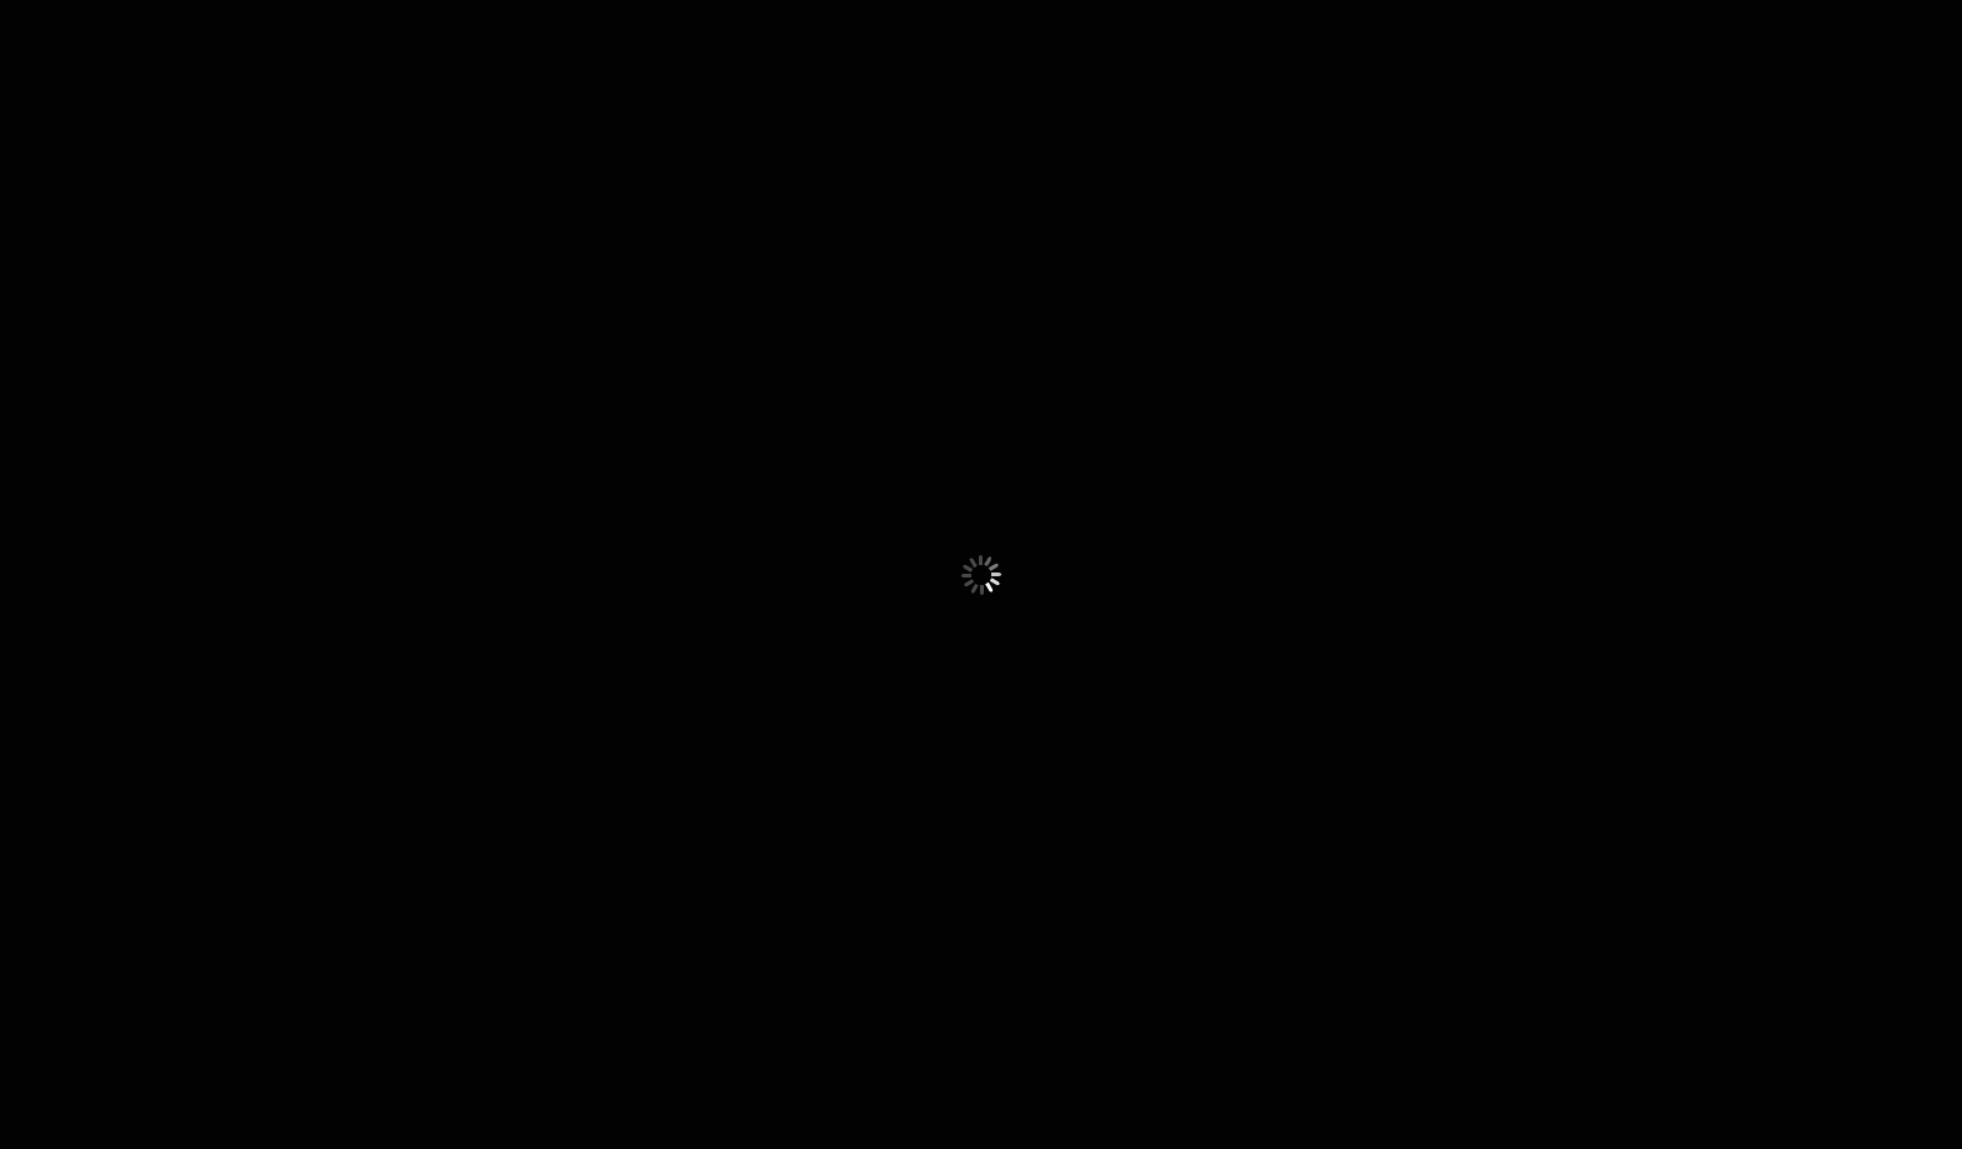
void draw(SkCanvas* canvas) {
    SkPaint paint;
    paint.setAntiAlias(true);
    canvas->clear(0xFF020202);
    canvas->drawImageRect(SkImages::DeferredFromEncodedData(SkData::MakeFromFileName("img1.png")), SkRect::MakeXYWH(961, 555, 41, 41), SkSamplingOptions());
}
